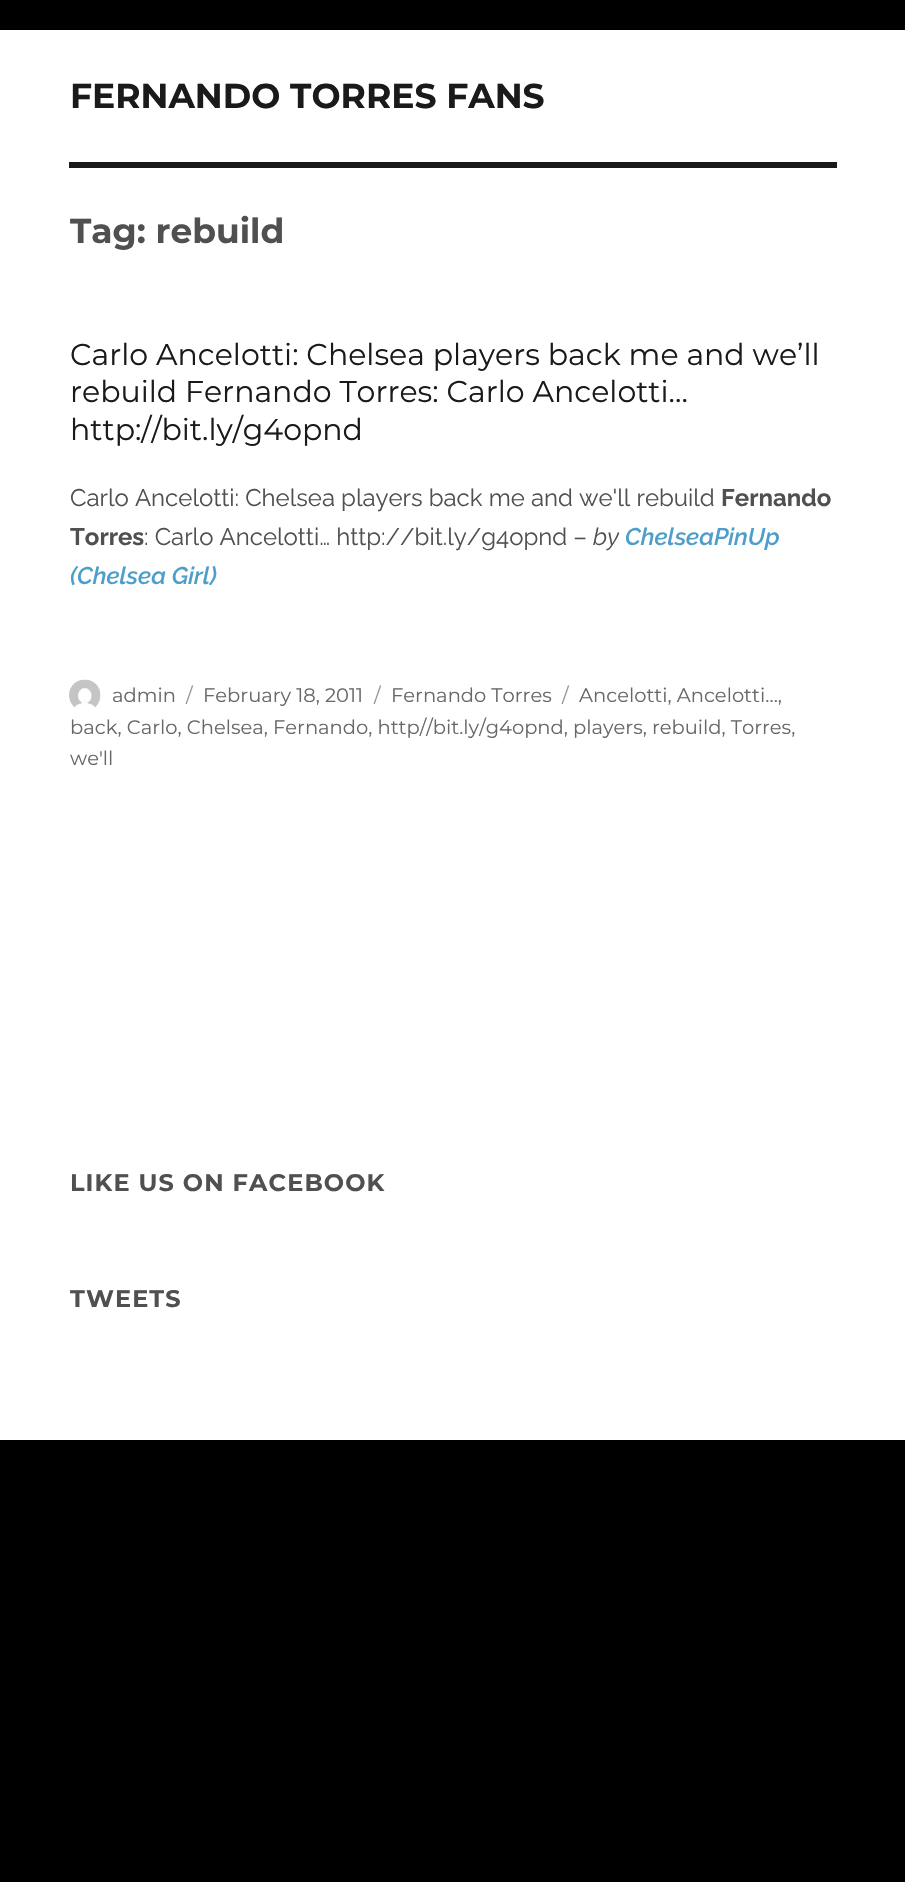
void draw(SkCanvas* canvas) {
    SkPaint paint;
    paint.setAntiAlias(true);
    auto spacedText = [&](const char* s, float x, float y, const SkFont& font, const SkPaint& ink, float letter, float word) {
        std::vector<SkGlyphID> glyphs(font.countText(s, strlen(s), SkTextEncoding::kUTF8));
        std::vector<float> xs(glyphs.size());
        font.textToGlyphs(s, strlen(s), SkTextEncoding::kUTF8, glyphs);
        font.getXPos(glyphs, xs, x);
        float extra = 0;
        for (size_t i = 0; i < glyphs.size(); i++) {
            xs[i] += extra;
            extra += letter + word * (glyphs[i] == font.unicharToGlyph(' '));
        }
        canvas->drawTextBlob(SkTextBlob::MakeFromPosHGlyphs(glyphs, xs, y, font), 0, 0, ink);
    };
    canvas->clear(0xFF000000);
    paint.setColor(0xFFFFFFFF);
    canvas->drawRect(SkRect::MakeXYWH(0, 30, 905, 1410), paint);
    SkFont font1(fontMgr->matchFamilyStyle("Montserrat", SkFontStyle(100, SkFontStyle::kNormal_Width, SkFontStyle::kUpright_Slant)), 34.5f);
    font1.setSubpixel(true);
    paint.setColor(0xFF1A1A1A);
    canvas->drawString("FERNANDO TORRES FANS", 70, 108, font1, paint);
    canvas->drawRect(SkRect::MakeXYWH(69, 162, 768, 6), paint);
    paint.setColor(0xFF505050);
    canvas->drawString("Tag: rebuild", 70, 243, font1, paint);
    SkFont font2(fontMgr->matchFamilyStyle("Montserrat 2", SkFontStyle(100, SkFontStyle::kNormal_Width, SkFontStyle::kUpright_Slant)), 30);
    font2.setSubpixel(true);
    paint.setColor(0xFF1A1A1A);
    canvas->drawString("Carlo Ancelotti: Chelsea players back me and we’ll", 70, 365, font2, paint);
    canvas->drawString("rebuild Fernando Torres: Carlo Ancelotti…", 70, 402, font2, paint);
    canvas->drawString("http://bit.ly/g4opnd", 70, 440, font2, paint);
    SkFont font3(fontMgr->matchFamilyStyle("Raleway", SkFontStyle::Normal()), 24);
    font3.setSubpixel(true);
    paint.setColor(0xFF505050);
    canvas->drawString("Carlo Ancelotti: Chelsea players back me and we'll rebuild", 70, 506, font3, paint);
    SkFont font4(fontMgr->matchFamilyStyle("Raleway", SkFontStyle::Bold()), 24);
    font4.setSubpixel(true);
    canvas->drawString("Fernando", 721, 506, font4, paint);
    canvas->drawString("Torres", 70, 545, font4, paint);
    canvas->drawString(": Carlo Ancelotti… http://bit.ly/g4opnd –", 144, 545, font3, paint);
    SkFont font5(fontMgr->matchFamilyStyle("Raleway", SkFontStyle::Italic()), 24);
    font5.setSubpixel(true);
    canvas->drawString("by", 593, 545, font5, paint);
    SkFont font6(fontMgr->matchFamilyStyle("Raleway", SkFontStyle(600, SkFontStyle::kNormal_Width, SkFontStyle::kItalic_Slant)), 24);
    font6.setSubpixel(true);
    paint.setColor(0xFF4E9ECA);
    canvas->drawString("ChelseaPinUp", 625, 545, font6, paint);
    canvas->drawString("(Chelsea Girl)", 70, 584, font6, paint);
    canvas->drawImageRect(SkImages::DeferredFromEncodedData(SkData::MakeFromFileName("img1.png")), SkRect::MakeXYWH(69, 679, 32, 29), SkSamplingOptions());
    SkFont font7(fontMgr->matchFamilyStyle("Montserrat 2", SkFontStyle(100, SkFontStyle::kNormal_Width, SkFontStyle::kUpright_Slant)), 19.5f);
    font7.setSubpixel(true);
    paint.setColor(0xFF686868);
    canvas->drawString("admin", 112, 702, font7, paint);
    paint.setColor(0xFF959595);
    canvas->drawString("/", 186, 702, font7, paint);
    paint.setColor(0xFF686868);
    canvas->drawString("February 18, 2011", 203, 702, font7, paint);
    paint.setColor(0xFF959595);
    canvas->drawString("/", 374, 702, font7, paint);
    paint.setColor(0xFF686868);
    canvas->drawString("Fernando Torres", 391, 702, font7, paint);
    paint.setColor(0xFF959595);
    canvas->drawString("/", 562, 702, font7, paint);
    paint.setColor(0xFF686868);
    canvas->drawString("Ancelotti, Ancelotti…,", 579, 702, font7, paint);
    canvas->drawString("back, Carlo, Chelsea, Fernando, http//bit.ly/g4opnd, players, rebuild, Torres,", 70, 734, font7, paint);
    canvas->drawString("we'll", 70, 765, font7, paint);
    SkFont font8(fontMgr->matchFamilyStyle("Montserrat", SkFontStyle(100, SkFontStyle::kNormal_Width, SkFontStyle::kUpright_Slant)), 24);
    font8.setSubpixel(true);
    paint.setColor(0xFF505050);
    spacedText("LIKE US ON FACEBOOK", 70, 1191, font8, paint, 1.1f, 0);
    spacedText("TWEETS", 70, 1307, font8, paint, 1.1f, 0);
}
